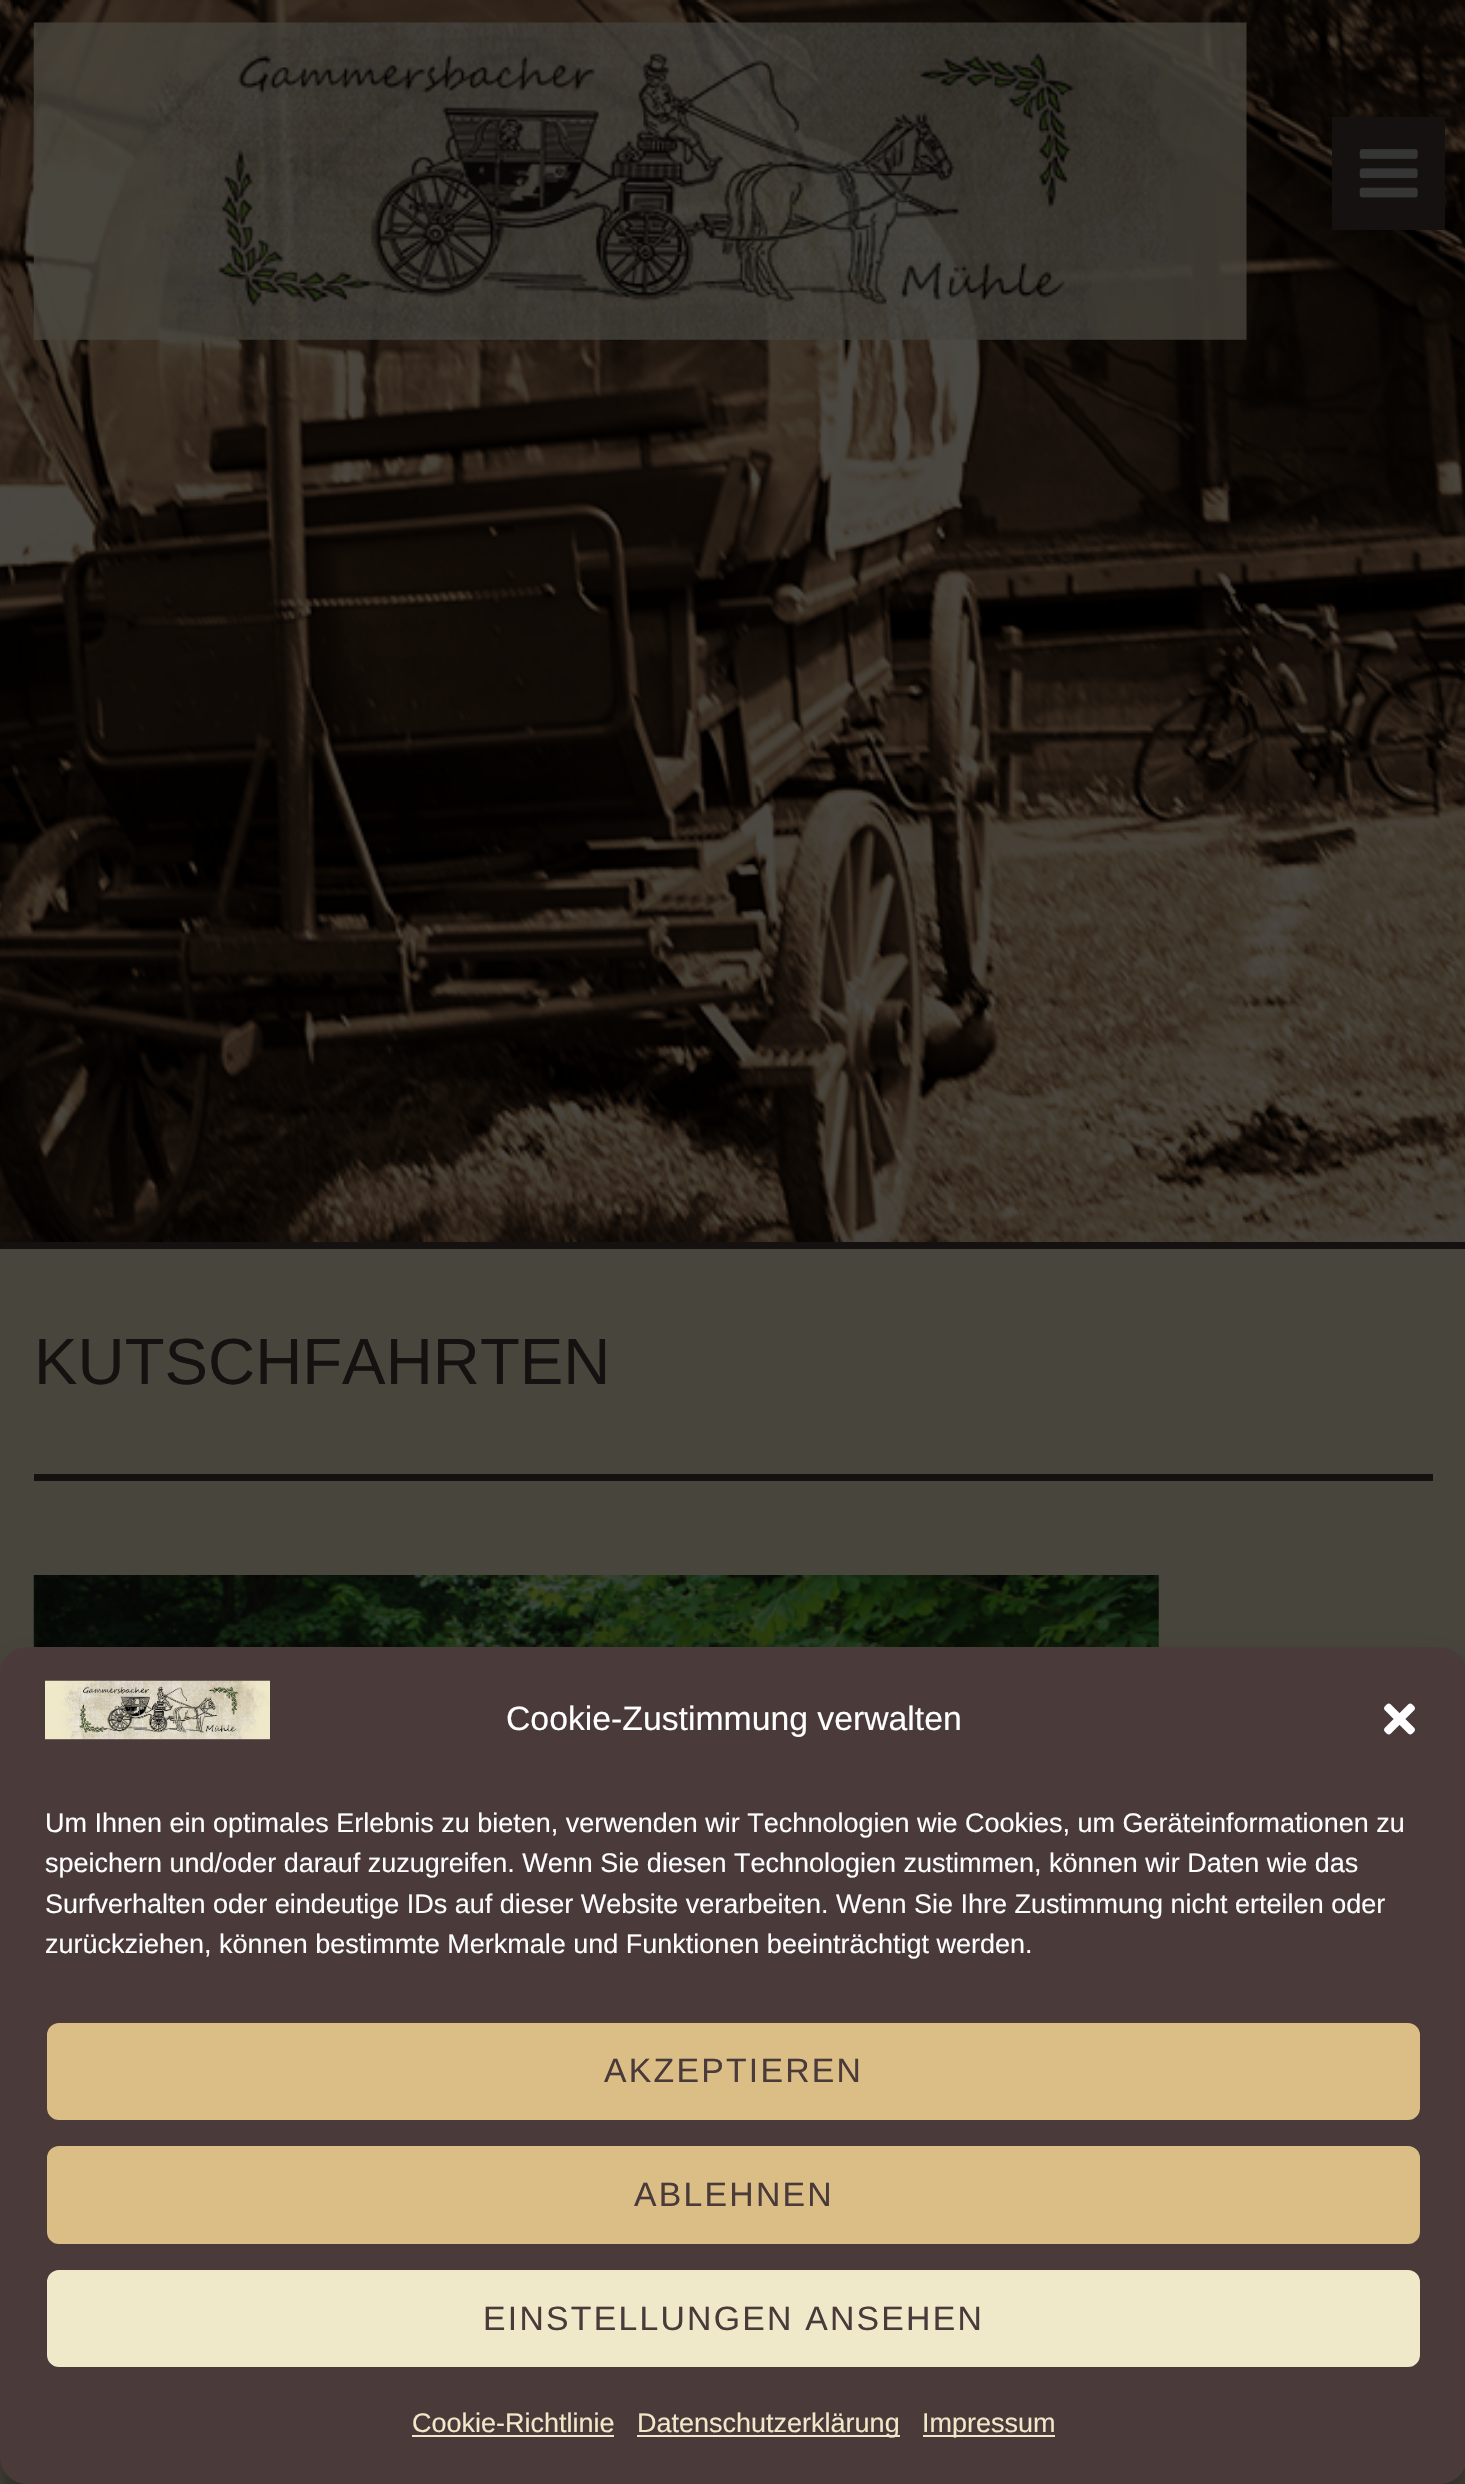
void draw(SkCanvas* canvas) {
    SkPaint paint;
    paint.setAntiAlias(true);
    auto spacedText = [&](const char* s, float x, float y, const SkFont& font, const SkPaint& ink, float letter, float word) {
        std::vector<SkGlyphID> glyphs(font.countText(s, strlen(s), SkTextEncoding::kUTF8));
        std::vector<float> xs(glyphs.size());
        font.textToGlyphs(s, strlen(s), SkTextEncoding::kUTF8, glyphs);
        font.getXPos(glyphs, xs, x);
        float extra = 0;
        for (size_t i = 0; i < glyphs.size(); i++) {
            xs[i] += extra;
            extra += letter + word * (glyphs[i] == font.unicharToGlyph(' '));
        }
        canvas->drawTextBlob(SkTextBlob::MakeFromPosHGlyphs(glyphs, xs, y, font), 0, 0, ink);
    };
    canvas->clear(0xFF48463C);
    canvas->drawImageRect(SkImages::DeferredFromEncodedData(SkData::MakeFromFileName("img3.png")), SkRect::MakeXYWH(0, 0, 1465, 1242), SkSamplingOptions());
    canvas->drawImageRect(SkImages::DeferredFromEncodedData(SkData::MakeFromFileName("img1.png")), SkRect::MakeXYWH(33, 22, 1214, 318), SkSamplingOptions());
    paint.setColor(0xFF161111);
    canvas->drawRect(SkRect::MakeXYWH(1332, 117, 113, 113), paint);
    canvas->drawImageRect(SkImages::DeferredFromEncodedData(SkData::MakeFromFileName("img2.png")), SkRect::MakeXYWH(1359, 149, 59, 49), SkSamplingOptions());
    canvas->drawRect(SkRect::MakeXYWH(0, 1242, 1465, 7), paint);
    SkFont font1(fontMgr->matchFamilyStyle("Arimo", SkFontStyle::Normal()), 65.25f);
    font1.setSubpixel(true);
    canvas->drawString("KUTSCHFAHRTEN", 34, 1384, font1, paint);
    canvas->drawRect(SkRect::MakeXYWH(34, 1474, 1399, 7), paint);
    canvas->drawImageRect(SkImages::DeferredFromEncodedData(SkData::MakeFromFileName("img4.png")), SkRect::MakeXYWH(33, 1575, 1126, 72), SkSamplingOptions());
    paint.setColor(0x3B000000);
    paint.setMaskFilter(SkMaskFilter::MakeBlur(kNormal_SkBlurStyle, 7));
    canvas->drawRoundRect(SkRect::MakeXYWH(0, 1661, 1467, 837), 27, 27, paint);
    paint.setMaskFilter(nullptr);
    paint.setColor(0x30000000);
    paint.setMaskFilter(SkMaskFilter::MakeBlur(kNormal_SkBlurStyle, 22.5f));
    canvas->drawRoundRect(SkRect::MakeXYWH(0, 1670, 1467, 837), 27, 27, paint);
    paint.setMaskFilter(nullptr);
    paint.setColor(0xFF4A3A3A);
    canvas->drawRoundRect(SkRect::MakeXYWH(0, 1647, 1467, 837), 27, 27, paint);
    canvas->drawImageRect(SkImages::DeferredFromEncodedData(SkData::MakeFromFileName("img5.png")), SkRect::MakeXYWH(45, 1680, 225, 60), SkSamplingOptions());
    SkFont font2(fontMgr->matchFamilyStyle("Arimo", SkFontStyle::Normal()), 33.75f);
    font2.setSubpixel(true);
    paint.setColor(0xFFFFFFFF);
    canvas->drawString("Cookie-Zustimmung verwalten", 506, 1730, font2, paint);
    canvas->drawImageRect(SkImages::DeferredFromEncodedData(SkData::MakeFromFileName("img6.png")), SkRect::MakeXYWH(1384, 1703, 31, 32), SkSamplingOptions());
    SkFont font3(fontMgr->matchFamilyStyle("Arimo", SkFontStyle::Normal()), 27);
    font3.setSubpixel(true);
    canvas->drawString("Um Ihnen ein optimales Erlebnis zu bieten, verwenden wir Technologien wie Cookies, um Geräteinformationen zu", 45, 1832, font3, paint);
    canvas->drawString("speichern und/oder darauf zuzugreifen. Wenn Sie diesen Technologien zustimmen, können wir Daten wie das", 45, 1872, font3, paint);
    canvas->drawString("Surfverhalten oder eindeutige IDs auf dieser Website verarbeiten. Wenn Sie Ihre Zustimmung nicht erteilen oder", 45, 1913, font3, paint);
    canvas->drawString("zurückziehen, können bestimmte Merkmale und Funktionen beeinträchtigt werden.", 45, 1953, font3, paint);
    paint.setColor(0xFFDABE85);
    canvas->drawRoundRect(SkRect::MakeXYWH(46, 2022, 1375, 99), 13, 13, paint);
    paint.setStyle(SkPaint::kStroke_Style);
    paint.setStrokeWidth(2);
    paint.setColor(0xFF4A3A3A);
    canvas->drawRoundRect(SkRect::MakeXYWH(46, 2022, 1375, 99), 13, 13, paint);
    paint.setStyle(SkPaint::kFill_Style);
    spacedText("AKZEPTIEREN", 604, 2082, font2, paint, 2.25f, 0);
    paint.setColor(0xFFDABE85);
    canvas->drawRoundRect(SkRect::MakeXYWH(46, 2145, 1375, 100), 13, 13, paint);
    paint.setStyle(SkPaint::kStroke_Style);
    paint.setColor(0xFF4A3A3A);
    canvas->drawRoundRect(SkRect::MakeXYWH(46, 2145, 1375, 100), 13, 13, paint);
    paint.setStyle(SkPaint::kFill_Style);
    spacedText("ABLEHNEN", 634, 2206, font2, paint, 2.25f, 0);
    paint.setColor(0xFFEFE8C9);
    canvas->drawRoundRect(SkRect::MakeXYWH(46, 2269, 1375, 99), 13, 13, paint);
    paint.setStyle(SkPaint::kStroke_Style);
    paint.setColor(0xFF4A3A3A);
    canvas->drawRoundRect(SkRect::MakeXYWH(46, 2269, 1375, 99), 13, 13, paint);
    paint.setStyle(SkPaint::kFill_Style);
    spacedText("EINSTELLUNGEN ANSEHEN", 483, 2330, font2, paint, 2.25f, 0);
    paint.setColor(0xFFEFE8C9);
    canvas->drawString("Cookie-Richtlinie", 412, 2432, font3, paint);
    canvas->drawRect(SkRect::MakeXYWH(412, 2435, 202, 2), paint);
    canvas->drawRect(SkRect::MakeXYWH(637, 2435, 263, 2), paint);
    canvas->drawString("Datenschutzerklärung", 637, 2432, font3, paint);
    canvas->drawRect(SkRect::MakeXYWH(923, 2435, 132, 2), paint);
    canvas->drawString("Impressum", 922, 2432, font3, paint);
}
